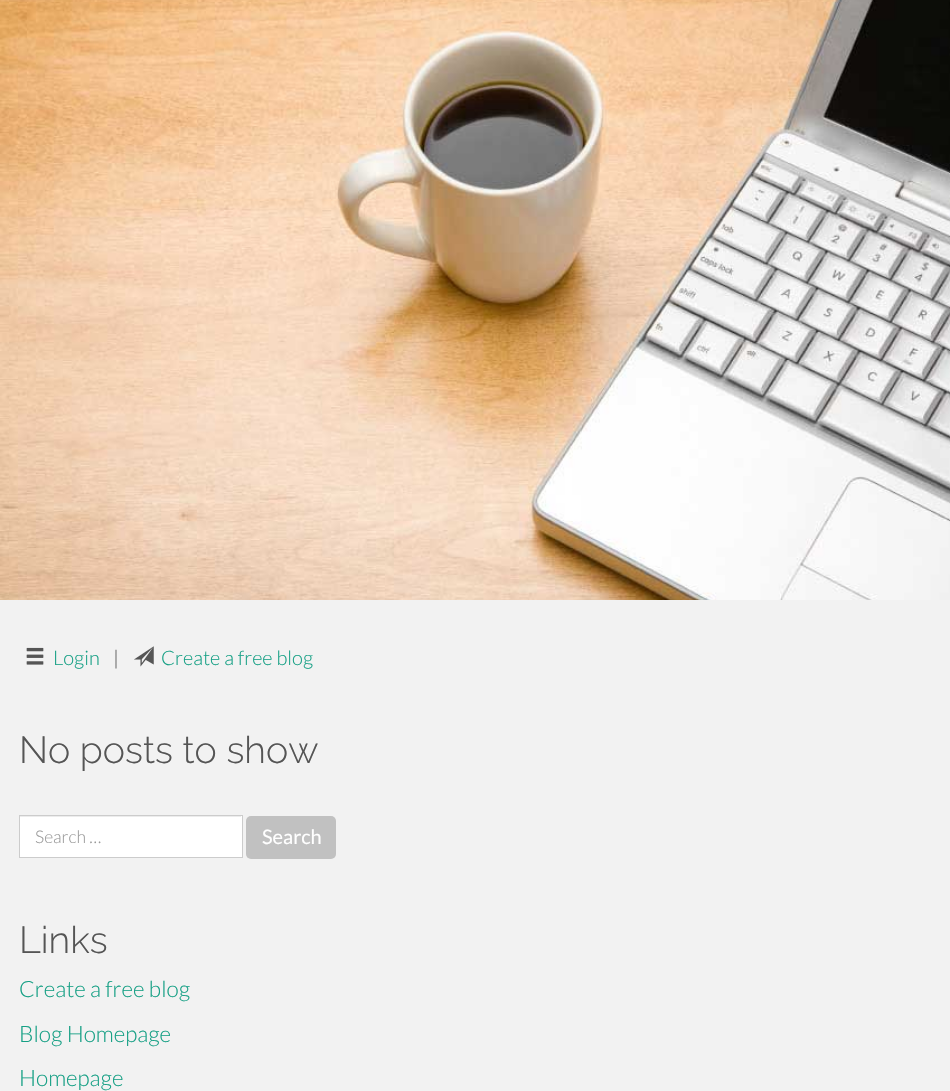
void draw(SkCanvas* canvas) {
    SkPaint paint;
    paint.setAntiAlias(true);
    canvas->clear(0xFFF2F2F2);
    canvas->drawImageRect(SkImages::DeferredFromEncodedData(SkData::MakeFromFileName("img1.png")), SkRect::MakeXYWH(0, 0, 950, 600), SkSamplingOptions());
    canvas->drawImageRect(SkImages::DeferredFromEncodedData(SkData::MakeFromFileName("img2.png")), SkRect::MakeXYWH(26, 647, 18, 18), SkSamplingOptions());
    SkFont font1(fontMgr->matchFamilyStyle("Lato", SkFontStyle(300, SkFontStyle::kNormal_Width, SkFontStyle::kUpright_Slant)), 20);
    font1.setSubpixel(true);
    paint.setColor(0xFF16A085);
    canvas->drawString("Login", 53, 665, font1, paint);
    paint.setColor(0xFF555555);
    canvas->drawString("|", 113, 665, font1, paint);
    canvas->drawImageRect(SkImages::DeferredFromEncodedData(SkData::MakeFromFileName("img3.png")), SkRect::MakeXYWH(134, 646, 20, 21), SkSamplingOptions());
    paint.setColor(0xFF16A085);
    canvas->drawString("Create a free blog", 161, 665, font1, paint);
    SkFont font2(fontMgr->matchFamilyStyle("Raleway", SkFontStyle(300, SkFontStyle::kNormal_Width, SkFontStyle::kUpright_Slant)), 37.5f);
    font2.setSubpixel(true);
    paint.setColor(0xFF555555);
    canvas->drawString("No posts to show", 19, 763, font2, paint);
    paint.setColor(0xFFFFFFFF);
    canvas->drawRect(SkRect::MakeXYWH(20, 816, 222, 41), paint);
    paint.setColor(0xFFECECEC);
    canvas->drawRect(SkRect::MakeXYWH(20, 816, 221, 1), paint);
    paint.setStyle(SkPaint::kStroke_Style);
    paint.setStrokeWidth(1);
    paint.setColor(0xFFCCCCCC);
    canvas->drawRect(SkRect::MakeXYWH(19.5f, 815.5f, 223, 42), paint);
    SkFont font3(fontMgr->matchFamilyStyle("Lato", SkFontStyle(300, SkFontStyle::kNormal_Width, SkFontStyle::kUpright_Slant)), 17.5f);
    font3.setSubpixel(true);
    paint.setStyle(SkPaint::kFill_Style);
    paint.setColor(0xFF999999);
    canvas->drawString("Search …", 35, 843, font3, paint);
    paint.setColor(0xFFC1C1C1);
    canvas->drawRoundRect(SkRect::MakeXYWH(246, 816, 90, 43), 5, 5, paint);
    SkFont font4(fontMgr->matchFamilyStyle("Lato", SkFontStyle::Normal()), 20);
    font4.setSubpixel(true);
    paint.setColor(0xFFFFFFFF);
    canvas->drawString("Search", 262, 844, font4, paint);
    paint.setColor(0xFF555555);
    canvas->drawString("Links", 19, 953, font2, paint);
    SkFont font5(fontMgr->matchFamilyStyle("Lato", SkFontStyle(300, SkFontStyle::kNormal_Width, SkFontStyle::kUpright_Slant)), 22.5f);
    font5.setSubpixel(true);
    paint.setColor(0xFF16A085);
    canvas->drawString("Create a free blog", 19, 997, font5, paint);
    canvas->drawString("Blog Homepage", 19, 1042, font5, paint);
    canvas->drawString("Homepage", 19, 1086, font5, paint);
}
